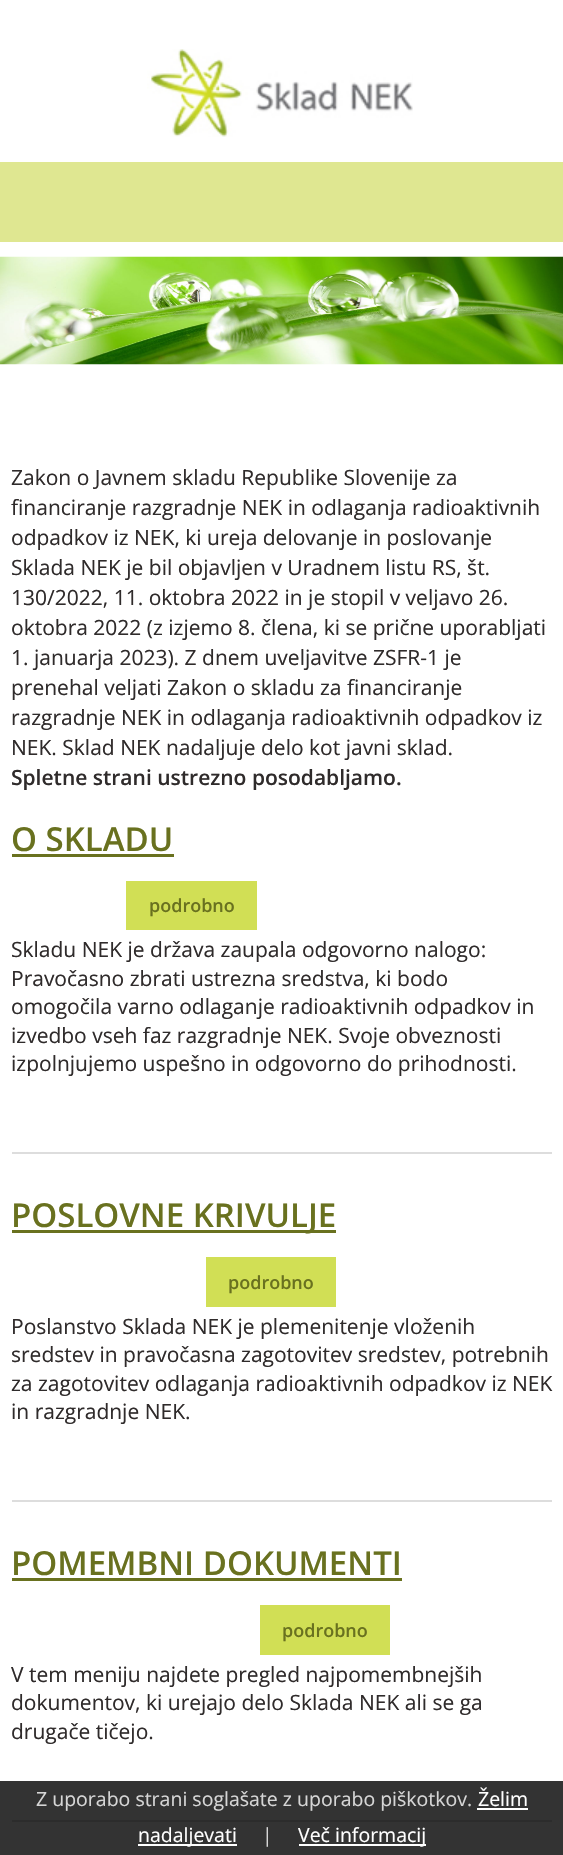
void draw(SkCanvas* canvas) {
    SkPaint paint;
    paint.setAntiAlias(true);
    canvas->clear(0xFFFFFFFF);
    paint.setColor(0xFF333333);
    canvas->drawRect(SkRect::MakeXYWH(0, 1781, 563, 74), paint);
    canvas->drawImageRect(SkImages::DeferredFromEncodedData(SkData::MakeFromFileName("img1.png")), SkRect::MakeXYWH(147, 49, 266, 88), SkSamplingOptions());
    paint.setColor(0xFFDFE791);
    canvas->drawRect(SkRect::MakeXYWH(0, 162, 563, 80), paint);
    canvas->drawImageRect(SkImages::DeferredFromEncodedData(SkData::MakeFromFileName("img2.png")), SkRect::MakeXYWH(0, 256, 563, 109), SkSamplingOptions());
    SkFont font1(fontMgr->matchFamilyStyle("Open Sans", SkFontStyle::Normal()), 21);
    font1.setSubpixel(true);
    paint.setColor(0xFF2F2B2B);
    canvas->drawString("Zakon o Javnem skladu Republike Slovenije za", 11, 485, font1, paint);
    canvas->drawString("financiranje razgradnje NEK in odlaganja radioaktivnih", 11, 515, font1, paint);
    canvas->drawString("odpadkov iz NEK, ki ureja delovanje in poslovanje", 11, 545, font1, paint);
    canvas->drawString("Sklada NEK je bil objavljen v Uradnem listu RS, št.", 11, 575, font1, paint);
    canvas->drawString("130/2022, 11. oktobra 2022 in je stopil v veljavo 26.", 11, 605, font1, paint);
    canvas->drawString("oktobra 2022 (z izjemo 8. člena, ki se prične uporabljati", 11, 635, font1, paint);
    canvas->drawString("1. januarja 2023). Z dnem uveljavitve ZSFR-1 je", 11, 665, font1, paint);
    canvas->drawString("prenehal veljati Zakon o skladu za financiranje", 11, 695, font1, paint);
    canvas->drawString("razgradnje NEK in odlaganja radioaktivnih odpadkov iz", 11, 725, font1, paint);
    canvas->drawString("NEK. Sklad NEK nadaljuje delo kot javni sklad.", 11, 755, font1, paint);
    SkFont font2(fontMgr->matchFamilyStyle("Open Sans", SkFontStyle(600, SkFontStyle::kNormal_Width, SkFontStyle::kUpright_Slant)), 21);
    font2.setSubpixel(true);
    canvas->drawString("Spletne strani ustrezno posodabljamo.", 11, 785, font2, paint);
    paint.setColor(0xFFDDDDDD);
    canvas->drawRect(SkRect::MakeXYWH(12, 1152, 540, 2), paint);
    SkFont font3(fontMgr->matchFamilyStyle("Open Sans", SkFontStyle(600, SkFontStyle::kNormal_Width, SkFontStyle::kUpright_Slant)), 33);
    font3.setSubpixel(true);
    paint.setColor(0xFF69711F);
    canvas->drawString("O SKLADU", 11, 851, font3, paint);
    canvas->drawRect(SkRect::MakeXYWH(12, 854, 162, 3), paint);
    paint.setColor(0xFFD1DF55);
    canvas->drawRect(SkRect::MakeXYWH(126, 881, 131, 49), paint);
    SkFont font4(fontMgr->matchFamilyStyle("Open Sans", SkFontStyle(600, SkFontStyle::kNormal_Width, SkFontStyle::kUpright_Slant)), 18);
    font4.setSubpixel(true);
    paint.setColor(0xFF69711F);
    canvas->drawString("podrobno", 149, 912, font4, paint);
    paint.setColor(0xFF2F2B2B);
    canvas->drawString("Skladu NEK je država zaupala odgovorno nalogo:", 11, 957, font1, paint);
    canvas->drawString("Pravočasno zbrati ustrezna sredstva, ki bodo", 11, 986, font1, paint);
    canvas->drawString("omogočila varno odlaganje radioaktivnih odpadkov in", 11, 1014, font1, paint);
    canvas->drawString("izvedbo vseh faz razgradnje NEK. Svoje obveznosti", 11, 1043, font1, paint);
    canvas->drawString("izpolnjujemo uspešno in odgovorno do prihodnosti.", 11, 1071, font1, paint);
    paint.setColor(0xFFDDDDDD);
    canvas->drawRect(SkRect::MakeXYWH(12, 1500, 540, 2), paint);
    paint.setColor(0xFF69711F);
    canvas->drawRect(SkRect::MakeXYWH(12, 1230, 324, 3), paint);
    canvas->drawString("POSLOVNE KRIVULJE", 11, 1227, font3, paint);
    paint.setColor(0xFFD1DF55);
    canvas->drawRect(SkRect::MakeXYWH(206, 1257, 130, 50), paint);
    paint.setColor(0xFF69711F);
    canvas->drawString("podrobno", 228, 1289, font4, paint);
    paint.setColor(0xFF2F2B2B);
    canvas->drawString("Poslanstvo Sklada NEK je plemenitenje vloženih", 11, 1334, font1, paint);
    canvas->drawString("sredstev in pravočasna zagotovitev sredstev, potrebnih", 11, 1362, font1, paint);
    canvas->drawString("za zagotovitev odlaganja radioaktivnih odpadkov iz NEK", 11, 1391, font1, paint);
    canvas->drawString("in razgradnje NEK.", 11, 1419, font1, paint);
    paint.setColor(0xFF2C2C2C);
    canvas->drawRect(SkRect::MakeXYWH(12, 1820, 540, 2), paint);
    paint.setColor(0xFF69711F);
    canvas->drawString("POMEMBNI DOKUMENTI", 11, 1575, font3, paint);
    canvas->drawRect(SkRect::MakeXYWH(12, 1578, 390, 3), paint);
    paint.setColor(0xFFD1DF55);
    canvas->drawRect(SkRect::MakeXYWH(260, 1605, 130, 50), paint);
    paint.setColor(0xFF69711F);
    canvas->drawString("podrobno", 282, 1637, font4, paint);
    paint.setColor(0xFF2F2B2B);
    canvas->drawString("V tem meniju najdete pregled najpomembnejših", 11, 1682, font1, paint);
    canvas->drawString("dokumentov, ki urejajo delo Sklada NEK ali se ga", 11, 1710, font1, paint);
    canvas->drawString("drugače tičejo.", 11, 1739, font1, paint);
    SkFont font5(fontMgr->matchFamilyStyle("Open Sans", SkFontStyle::Normal()), 19.5f);
    font5.setSubpixel(true);
    paint.setColor(0xFFD6D6D6);
    canvas->drawString("Z uporabo strani soglašate z uporabo piškotkov.", 36, 1806, font5, paint);
    paint.setColor(0xFFFFFFFF);
    canvas->drawString("Želim", 478, 1806, font5, paint);
    canvas->drawRect(SkRect::MakeXYWH(477, 1808, 51, 2), paint);
    canvas->drawRect(SkRect::MakeXYWH(138, 1844, 99, 2), paint);
    canvas->drawString("nadaljevati", 138, 1842, font5, paint);
    paint.setColor(0xFFD6D6D6);
    canvas->drawString("|", 262, 1842, font5, paint);
    paint.setColor(0xFFFFFFFF);
    canvas->drawRect(SkRect::MakeXYWH(299, 1844, 127, 2), paint);
    canvas->drawString("Več informacij", 298, 1842, font5, paint);
}
